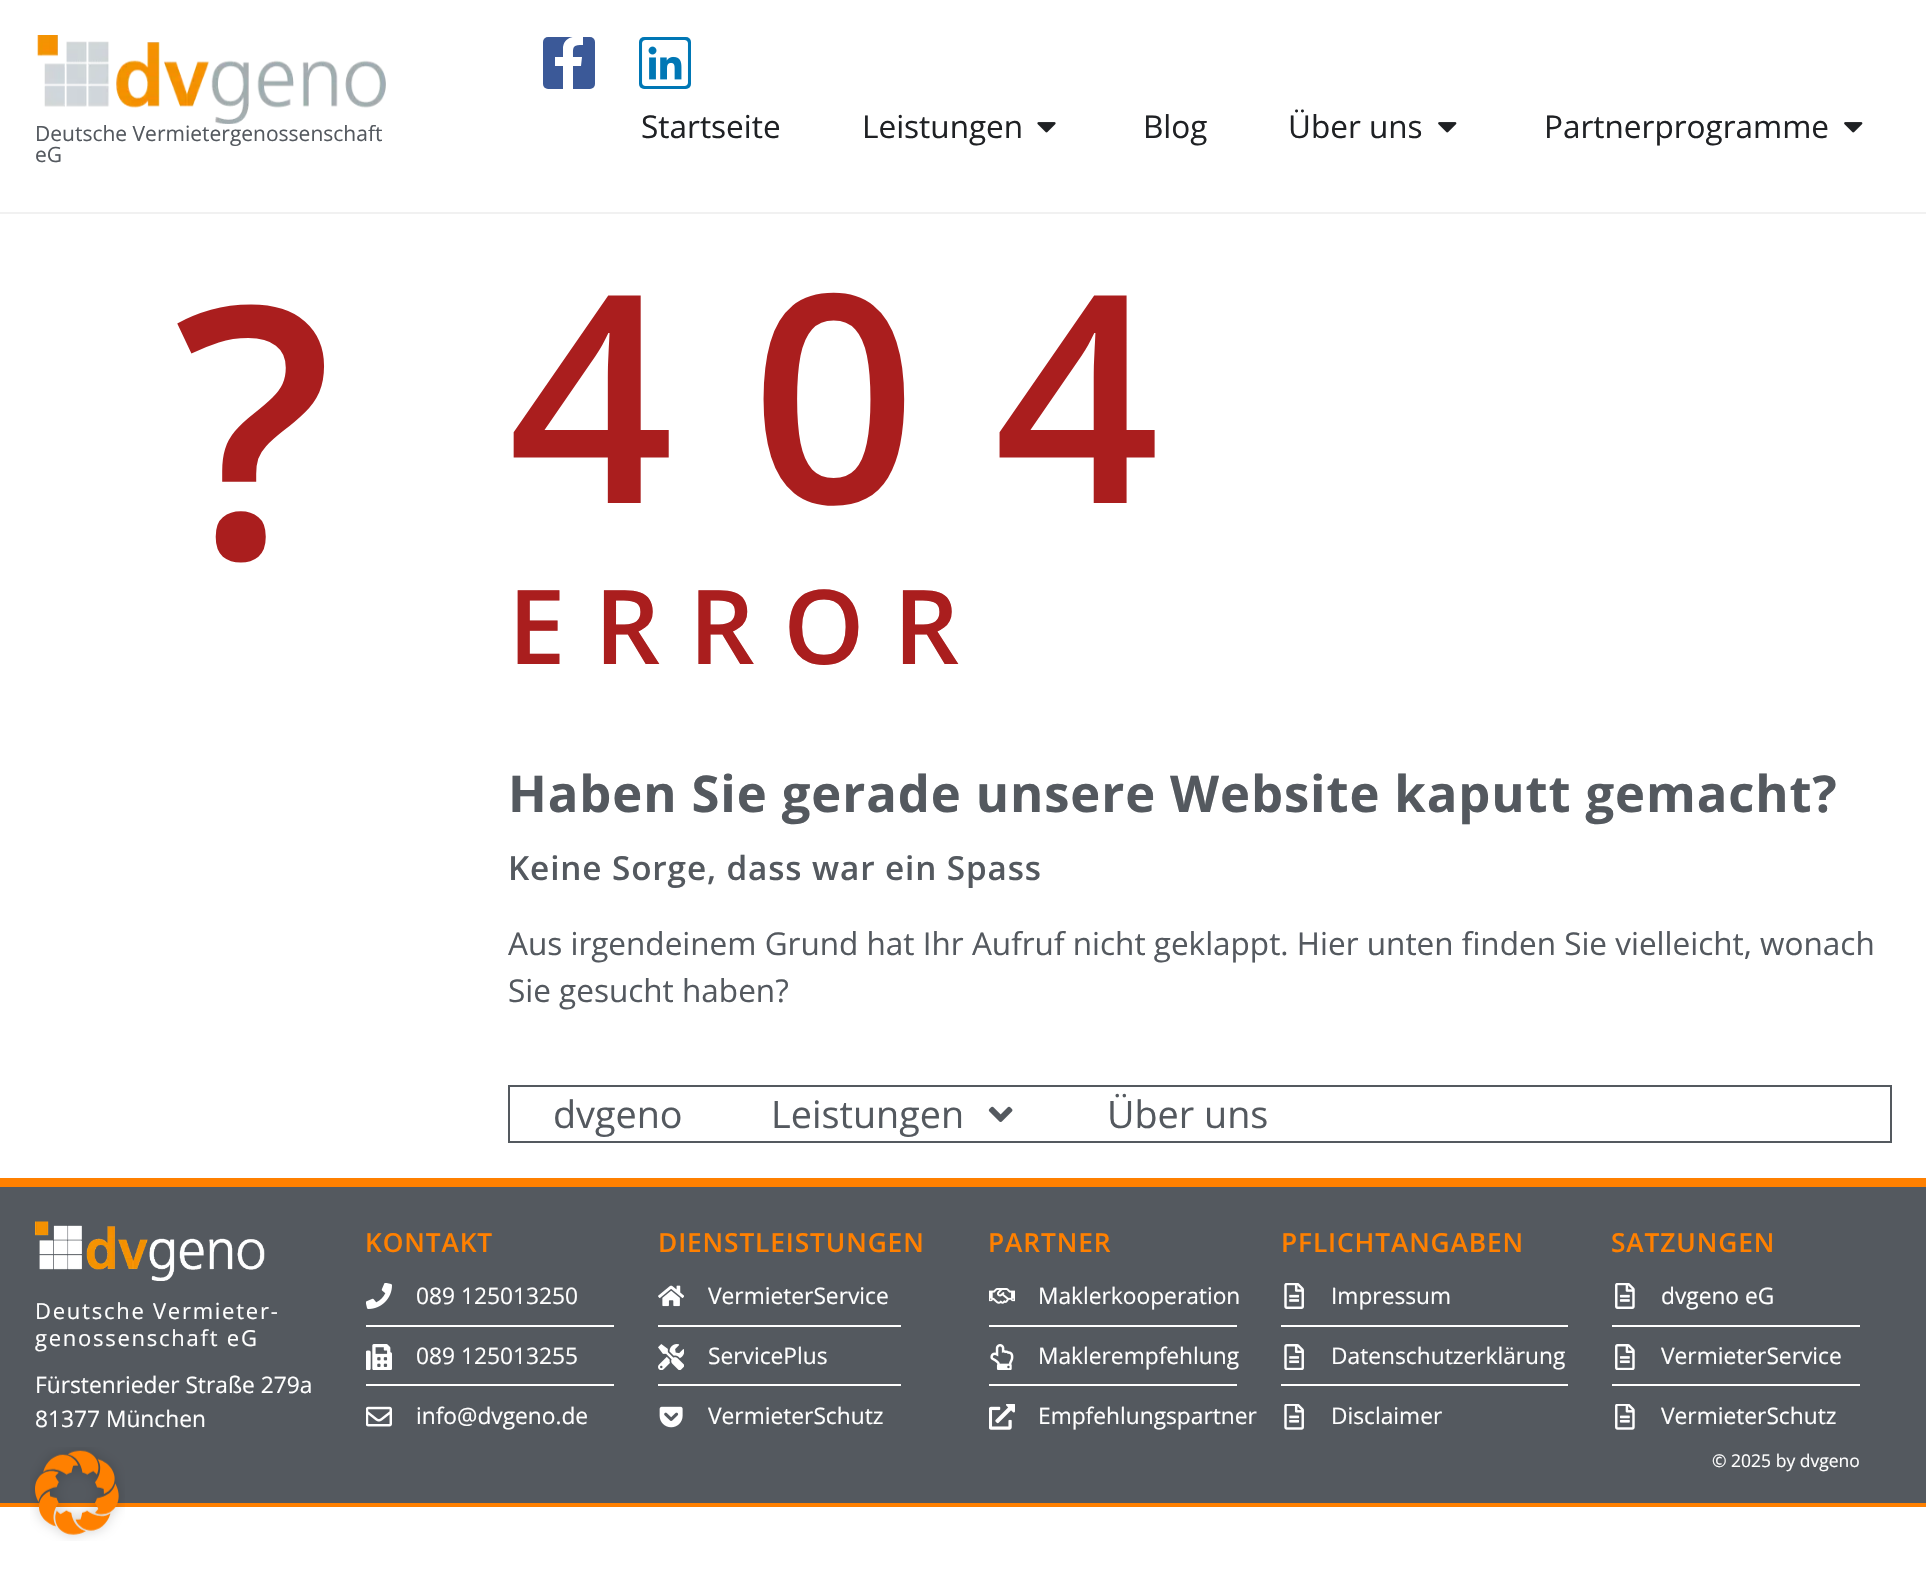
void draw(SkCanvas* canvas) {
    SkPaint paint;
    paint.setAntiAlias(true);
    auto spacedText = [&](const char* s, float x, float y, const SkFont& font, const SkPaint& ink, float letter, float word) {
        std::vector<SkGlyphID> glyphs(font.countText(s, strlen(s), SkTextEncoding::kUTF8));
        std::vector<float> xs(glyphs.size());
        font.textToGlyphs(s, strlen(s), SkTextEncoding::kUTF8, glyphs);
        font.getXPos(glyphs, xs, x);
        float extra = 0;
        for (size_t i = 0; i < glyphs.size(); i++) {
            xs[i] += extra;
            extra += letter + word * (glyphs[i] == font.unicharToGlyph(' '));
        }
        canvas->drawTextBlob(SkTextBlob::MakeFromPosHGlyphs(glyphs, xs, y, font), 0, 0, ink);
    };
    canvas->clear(0xFFFFFFFF);
    paint.setColor(0xFFF1F1F1);
    canvas->drawRect(SkRect::MakeXYWH(0, 212, 1926, 2), paint);
    canvas->drawImageRect(SkImages::DeferredFromEncodedData(SkData::MakeFromFileName("img1.png")), SkRect::MakeXYWH(37, 35, 349, 89), SkSamplingOptions());
    SkFont font1(fontMgr->matchFamilyStyle("Open Sans", SkFontStyle::Normal()), 21);
    font1.setSubpixel(true);
    paint.setColor(0xFF54595F);
    canvas->drawString("Deutsche Vermietergenossenschaft", 35, 141, font1, paint);
    canvas->drawString("eG", 35, 162, font1, paint);
    paint.setColor(0xFF3B5998);
    canvas->drawRoundRect(SkRect::MakeXYWH(543, 37, 52, 52), 5, 5, paint);
    canvas->save();
    canvas->clipRect(SkRect::MakeXYWH(543, 37, 52, 52));
    paint.setColor(0xFFFFFFFF);
    canvas->drawPath(SkPathBuilder().moveTo(581, 66).lineTo(582, 57).lineTo(573, 57).cubicTo(573, 47, 572, 45, 583, 45).lineTo(583, 37).cubicTo(575, 36, 565, 36, 563, 47).lineTo(563, 57).lineTo(555, 57).lineTo(555, 66).lineTo(563, 66).lineTo(563, 89).lineTo(573, 89).lineTo(573, 66).close().detach(), paint);
    canvas->restore();
    paint.setColor(0xFF0077B5);
    canvas->drawRoundRect(SkRect::MakeXYWH(639, 37, 52, 52), 5, 5, paint);
    canvas->drawImageRect(SkImages::DeferredFromEncodedData(SkData::MakeFromFileName("img2.png")), SkRect::MakeXYWH(642, 40, 46, 46), SkSamplingOptions());
    SkFont font2(fontMgr->matchFamilyStyle("Open Sans", SkFontStyle::Normal()), 31.5f);
    font2.setSubpixel(true);
    paint.setColor(0xFF1F2124);
    canvas->drawString("Startseite", 641, 138, font2, paint);
    canvas->drawString("Leistungen", 862, 138, font2, paint);
    canvas->drawImageRect(SkImages::DeferredFromEncodedData(SkData::MakeFromFileName("img3.png")), SkRect::MakeXYWH(1037, 122, 19, 11), SkSamplingOptions());
    canvas->drawString("Blog", 1143, 138, font2, paint);
    canvas->drawString("Über uns", 1288, 138, font2, paint);
    canvas->drawImageRect(SkImages::DeferredFromEncodedData(SkData::MakeFromFileName("img4.png")), SkRect::MakeXYWH(1438, 122, 19, 11), SkSamplingOptions());
    canvas->drawString("Partnerprogramme", 1544, 138, font2, paint);
    canvas->drawImageRect(SkImages::DeferredFromEncodedData(SkData::MakeFromFileName("img4.png")), SkRect::MakeXYWH(1844, 122, 19, 11), SkSamplingOptions());
    SkFont font3(fontMgr->matchFamilyStyle("Open Sans", SkFontStyle(600, SkFontStyle::kNormal_Width, SkFontStyle::kUpright_Slant)), 350);
    font3.setSubpixel(true);
    paint.setColor(0xFFAA1E1E);
    spacedText("?", 174, 558, font3, paint, 0.9f, 0);
    SkFont font4(fontMgr->matchFamilyStyle("Open Sans", SkFontStyle(600, SkFontStyle::kNormal_Width, SkFontStyle::kUpright_Slant)), 290);
    font4.setSubpixel(true);
    spacedText("4 0 4", 508, 503, font4, paint, 0.9f, 0);
    SkFont font5(fontMgr->matchFamilyStyle("Open Sans", SkFontStyle(600, SkFontStyle::kNormal_Width, SkFontStyle::kUpright_Slant)), 103.25f);
    font5.setSubpixel(true);
    spacedText("E R R O R", 508, 664, font5, paint, 0.9f, 0);
    SkFont font6(fontMgr->matchFamilyStyle("Open Sans", SkFontStyle::Bold()), 50.75f);
    font6.setSubpixel(true);
    paint.setColor(0xFF54595F);
    spacedText("Haben Sie gerade unsere Website kaputt gemacht?", 508, 812, font6, paint, 0.9f, 0);
    SkFont font7(fontMgr->matchFamilyStyle("Open Sans", SkFontStyle(600, SkFontStyle::kNormal_Width, SkFontStyle::kUpright_Slant)), 33.25f);
    font7.setSubpixel(true);
    spacedText("Keine Sorge, dass war ein Spass", 508, 880, font7, paint, 0.9f, 0);
    canvas->drawString("Aus irgendeinem Grund hat Ihr Aufruf nicht geklappt. Hier unten finden Sie vielleicht, wonach", 508, 955, font2, paint);
    canvas->drawString("Sie gesucht haben?", 508, 1002, font2, paint);
    paint.setStyle(SkPaint::kStroke_Style);
    paint.setStrokeWidth(2);
    canvas->drawRect(SkRect::MakeXYWH(509, 1086, 1382, 56), paint);
    SkFont font8(fontMgr->matchFamilyStyle("Open Sans", SkFontStyle::Normal()), 37.75f);
    font8.setSubpixel(true);
    paint.setStyle(SkPaint::kFill_Style);
    canvas->drawString("dvgeno", 553, 1128, font8, paint);
    canvas->drawString("Leistungen", 771, 1128, font8, paint);
    canvas->drawImageRect(SkImages::DeferredFromEncodedData(SkData::MakeFromFileName("img5.png")), SkRect::MakeXYWH(988, 1106, 25, 16), SkSamplingOptions());
    canvas->drawString("Über uns", 1107, 1128, font8, paint);
    canvas->drawRect(SkRect::MakeXYWH(0, 1187, 1926, 316), paint);
    paint.setColor(0xFFFF8000);
    canvas->drawRect(SkRect::MakeXYWH(0, 1178, 1926, 9), paint);
    canvas->drawRect(SkRect::MakeXYWH(0, 1503, 1926, 4), paint);
    canvas->drawImageRect(SkImages::DeferredFromEncodedData(SkData::MakeFromFileName("img6.png")), SkRect::MakeXYWH(35, 1221, 230, 60), SkSamplingOptions());
    SkFont font9(fontMgr->matchFamilyStyle("Open Sans", SkFontStyle::Normal()), 22);
    font9.setSubpixel(true);
    paint.setColor(0xFFFFFFFF);
    spacedText("Deutsche Vermieter-", 35, 1319, font9, paint, 1.75f, 0);
    spacedText("genossenschaft eG", 35, 1346, font9, paint, 1.75f, 0);
    SkFont font10(fontMgr->matchFamilyStyle("Open Sans", SkFontStyle::Normal()), 22.75f);
    font10.setSubpixel(true);
    canvas->drawString("Fürstenrieder Straße 279a", 35, 1393, font10, paint);
    canvas->drawString("81377 München", 35, 1427, font10, paint);
    SkFont font11(fontMgr->matchFamilyStyle("Open Sans", SkFontStyle(600, SkFontStyle::kNormal_Width, SkFontStyle::kUpright_Slant)), 26.25f);
    font11.setSubpixel(true);
    paint.setColor(0xFFFF8000);
    spacedText("KONTAKT", 365, 1252, font11, paint, 0.9f, 0);
    canvas->drawImageRect(SkImages::DeferredFromEncodedData(SkData::MakeFromFileName("img7.png")), SkRect::MakeXYWH(366, 1283, 26, 26), SkSamplingOptions());
    paint.setColor(0xFFFFFFFF);
    canvas->drawString("089 125013250", 416, 1304, font10, paint);
    canvas->drawRect(SkRect::MakeXYWH(366, 1325, 248, 2), paint);
    canvas->drawImageRect(SkImages::DeferredFromEncodedData(SkData::MakeFromFileName("img8.png")), SkRect::MakeXYWH(366, 1344, 26, 26), SkSamplingOptions());
    canvas->drawString("089 125013255", 416, 1364, font10, paint);
    canvas->drawRect(SkRect::MakeXYWH(366, 1384, 248, 2), paint);
    canvas->drawImageRect(SkImages::DeferredFromEncodedData(SkData::MakeFromFileName("img9.png")), SkRect::MakeXYWH(366, 1406, 26, 21), SkSamplingOptions());
    canvas->drawString("info@dvgeno.de", 416, 1424, font10, paint);
    paint.setColor(0xFFFF8000);
    spacedText("DIENSTLEISTUNGEN", 658, 1252, font11, paint, 0.9f, 0);
    canvas->drawImageRect(SkImages::DeferredFromEncodedData(SkData::MakeFromFileName("img10.png")), SkRect::MakeXYWH(658, 1285, 26, 22), SkSamplingOptions());
    paint.setColor(0xFFFFFFFF);
    canvas->drawString("VermieterService", 708, 1304, font10, paint);
    canvas->drawRect(SkRect::MakeXYWH(658, 1325, 243, 2), paint);
    canvas->drawImageRect(SkImages::DeferredFromEncodedData(SkData::MakeFromFileName("img11.png")), SkRect::MakeXYWH(658, 1344, 26, 26), SkSamplingOptions());
    canvas->drawString("ServicePlus", 708, 1364, font10, paint);
    canvas->drawRect(SkRect::MakeXYWH(658, 1384, 243, 2), paint);
    canvas->drawImageRect(SkImages::DeferredFromEncodedData(SkData::MakeFromFileName("img12.png")), SkRect::MakeXYWH(659, 1406, 24, 22), SkSamplingOptions());
    canvas->drawString("VermieterSchutz", 708, 1424, font10, paint);
    paint.setColor(0xFFFF8000);
    spacedText("PARTNER", 988, 1252, font11, paint, 0.9f, 0);
    canvas->drawImageRect(SkImages::DeferredFromEncodedData(SkData::MakeFromFileName("img13.png")), SkRect::MakeXYWH(989, 1288, 26, 16), SkSamplingOptions());
    paint.setColor(0xFFFFFFFF);
    canvas->drawString("Maklerkooperation", 1038, 1304, font10, paint);
    canvas->drawRect(SkRect::MakeXYWH(989, 1325, 248, 2), paint);
    canvas->drawImageRect(SkImages::DeferredFromEncodedData(SkData::MakeFromFileName("img14.png")), SkRect::MakeXYWH(990, 1344, 24, 26), SkSamplingOptions());
    canvas->drawString("Maklerempfehlung", 1038, 1364, font10, paint);
    canvas->drawRect(SkRect::MakeXYWH(989, 1384, 248, 2), paint);
    canvas->drawImageRect(SkImages::DeferredFromEncodedData(SkData::MakeFromFileName("img15.png")), SkRect::MakeXYWH(989, 1404, 26, 26), SkSamplingOptions());
    canvas->drawString("Empfehlungspartner", 1038, 1424, font10, paint);
    paint.setColor(0xFFFF8000);
    spacedText("PFLICHTANGABEN", 1281, 1252, font11, paint, 0.9f, 0);
    canvas->drawImageRect(SkImages::DeferredFromEncodedData(SkData::MakeFromFileName("img16.png")), SkRect::MakeXYWH(1284, 1283, 20, 26), SkSamplingOptions());
    paint.setColor(0xFFFFFFFF);
    canvas->drawString("Impressum", 1331, 1304, font10, paint);
    canvas->drawRect(SkRect::MakeXYWH(1281, 1325, 287, 2), paint);
    canvas->drawImageRect(SkImages::DeferredFromEncodedData(SkData::MakeFromFileName("img17.png")), SkRect::MakeXYWH(1284, 1344, 20, 26), SkSamplingOptions());
    canvas->drawString("Datenschutzerklärung", 1331, 1364, font10, paint);
    canvas->drawRect(SkRect::MakeXYWH(1281, 1384, 287, 2), paint);
    canvas->drawImageRect(SkImages::DeferredFromEncodedData(SkData::MakeFromFileName("img18.png")), SkRect::MakeXYWH(1284, 1404, 20, 26), SkSamplingOptions());
    canvas->drawString("Disclaimer", 1331, 1424, font10, paint);
    paint.setColor(0xFFFF8000);
    spacedText("SATZUNGEN", 1611, 1252, font11, paint, 0.9f, 0);
    canvas->drawImageRect(SkImages::DeferredFromEncodedData(SkData::MakeFromFileName("img19.png")), SkRect::MakeXYWH(1615, 1283, 20, 26), SkSamplingOptions());
    paint.setColor(0xFFFFFFFF);
    canvas->drawString("dvgeno eG", 1661, 1304, font10, paint);
    canvas->drawRect(SkRect::MakeXYWH(1612, 1325, 248, 2), paint);
    canvas->drawImageRect(SkImages::DeferredFromEncodedData(SkData::MakeFromFileName("img20.png")), SkRect::MakeXYWH(1615, 1344, 20, 26), SkSamplingOptions());
    canvas->drawString("VermieterService", 1661, 1364, font10, paint);
    canvas->drawRect(SkRect::MakeXYWH(1612, 1384, 248, 2), paint);
    canvas->drawImageRect(SkImages::DeferredFromEncodedData(SkData::MakeFromFileName("img21.png")), SkRect::MakeXYWH(1615, 1404, 20, 26), SkSamplingOptions());
    canvas->drawString("VermieterSchutz", 1661, 1424, font10, paint);
    SkFont font12(fontMgr->matchFamilyStyle("Open Sans", SkFontStyle::Normal()), 17.5f);
    font12.setSubpixel(true);
    canvas->drawString("© 2025 by dvgeno", 1712, 1467, font12, paint);
    canvas->drawImageRect(SkImages::DeferredFromEncodedData(SkData::MakeFromFileName("img22.png")), SkRect::MakeXYWH(30, 1447, 95, 94), SkSamplingOptions());
}
